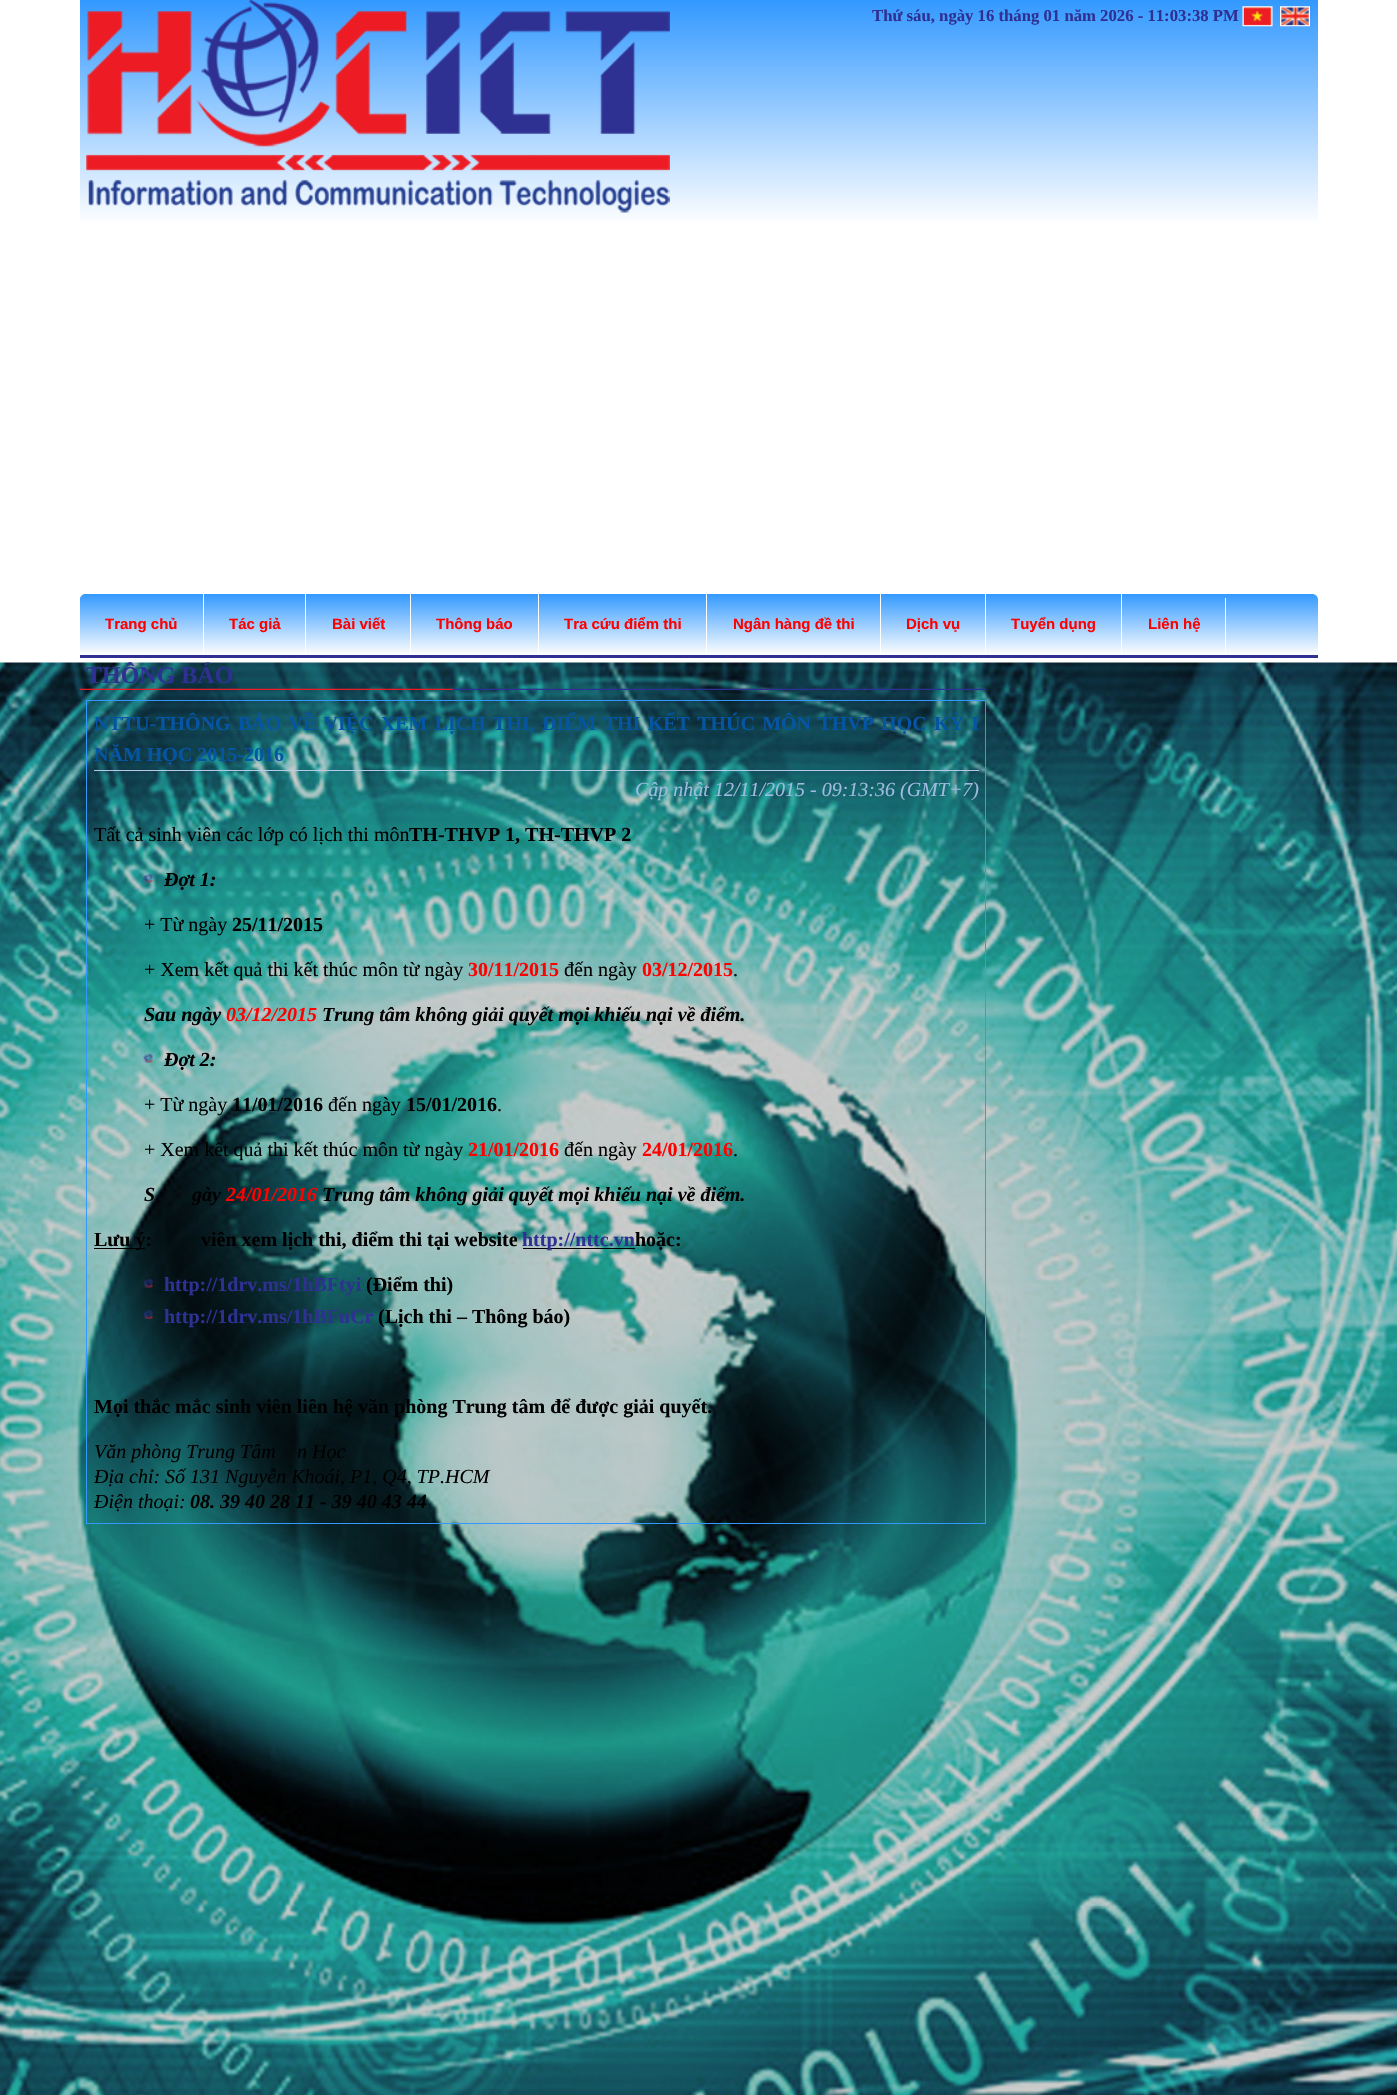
void draw(SkCanvas* canvas) {
    SkPaint paint;
    paint.setAntiAlias(true);
    auto spacedText = [&](const char* s, float x, float y, const SkFont& font, const SkPaint& ink, float letter, float word) {
        std::vector<SkGlyphID> glyphs(font.countText(s, strlen(s), SkTextEncoding::kUTF8));
        std::vector<float> xs(glyphs.size());
        font.textToGlyphs(s, strlen(s), SkTextEncoding::kUTF8, glyphs);
        font.getXPos(glyphs, xs, x);
        float extra = 0;
        for (size_t i = 0; i < glyphs.size(); i++) {
            xs[i] += extra;
            extra += letter + word * (glyphs[i] == font.unicharToGlyph(' '));
        }
        canvas->drawTextBlob(SkTextBlob::MakeFromPosHGlyphs(glyphs, xs, y, font), 0, 0, ink);
    };
    canvas->clear(0xFFFFFFFF);
    canvas->drawImageRect(SkImages::DeferredFromEncodedData(SkData::MakeFromFileName("img1.png")), SkRect::MakeXYWH(0, 662, 1397, 1433), SkSamplingOptions());
    {
        const SkColor colors[] = {0xFF3399FF, 0xFFFFFFFF};
        const float stops[] = {0, 1};
        const SkPoint ends[] = {{699, 0}, {699, 225}};
        paint.setShader(SkGradientShader::MakeLinear(ends, colors, stops, 2, SkTileMode::kClamp));
        paint.setAlpha(255);
    }
    canvas->drawRect(SkRect::MakeXYWH(80, 0, 1238, 222), paint);
    canvas->drawImageRect(SkImages::DeferredFromEncodedData(SkData::MakeFromFileName("img2.png")), SkRect::MakeXYWH(86, 0, 584, 213), SkSamplingOptions());
    SkFont font1(fontMgr->matchFamilyStyle("Liberation Serif", SkFontStyle::Bold()), 16.7f);
    font1.setSubpixel(true);
    paint.setShader(nullptr);
    paint.setColor(0xFF2E3092);
    canvas->drawString("Thứ sáu, ngày 16 tháng 01 năm 2026 - 11:03:38 PM", 872, 21, font1, paint);
    canvas->drawImageRect(SkImages::DeferredFromEncodedData(SkData::MakeFromFileName("img3.png")), SkRect::MakeXYWH(1242, 6, 31, 21), SkSamplingOptions());
    canvas->drawImageRect(SkImages::DeferredFromEncodedData(SkData::MakeFromFileName("img4.png")), SkRect::MakeXYWH(1280, 6, 30, 21), SkSamplingOptions());
    {
        const SkColor colors[] = {0xFF3399FF, 0xFFFFFFFF};
        const float stops[] = {0, 1};
        const SkPoint ends[] = {{699, 594}, {699, 655}};
        paint.setShader(SkGradientShader::MakeLinear(ends, colors, stops, 2, SkTileMode::kClamp));
        paint.setAlpha(255);
    }
    canvas->drawPath(SkPathBuilder().moveTo(86, 594).lineTo(1312, 594).cubicTo(1315.5f, 594, 1318, 596.5f, 1318, 600).lineTo(1318, 655).lineTo(80, 655).lineTo(80, 600).cubicTo(80, 596.5f, 82.5f, 594, 86, 594).close().detach(), paint);
    paint.setShader(nullptr);
    paint.setColor(0xFF2E3092);
    canvas->drawRect(SkRect::MakeXYWH(80, 655, 1238, 3), paint);
    {
        const SkColor colors[] = {0xFF3399FF, 0xFFFFFFFF};
        const float stops[] = {0, 1};
        const SkPoint ends[] = {{141, 594}, {141, 655}};
        paint.setShader(SkGradientShader::MakeLinear(ends, colors, stops, 2, SkTileMode::kClamp));
        paint.setAlpha(255);
    }
    canvas->drawPath(SkPathBuilder().moveTo(86, 594).lineTo(204, 594).lineTo(204, 655).lineTo(80, 655).lineTo(80, 600).cubicTo(80, 596.5f, 82.5f, 594, 86, 594).close().detach(), paint);
    paint.setShader(nullptr);
    paint.setColor(0xFFFFFFFF);
    canvas->drawRect(SkRect::MakeXYWH(203, 594, 1, 61), paint);
    SkFont font2(fontMgr->matchFamilyStyle("Liberation Sans", SkFontStyle::Bold()), 15);
    font2.setSubpixel(true);
    paint.setColor(0xFFFF0000);
    canvas->drawString("Trang chủ", 105, 629, font2, paint);
    paint.setColor(0xFFFFFFFF);
    canvas->drawRect(SkRect::MakeXYWH(305, 594, 1, 61), paint);
    paint.setColor(0xFFFF0000);
    canvas->drawString("Tác giả", 229, 629, font2, paint);
    paint.setColor(0xFFFFFFFF);
    canvas->drawRect(SkRect::MakeXYWH(410, 594, 1, 61), paint);
    paint.setColor(0xFFFF0000);
    canvas->drawString("Bài viết", 332, 629, font2, paint);
    paint.setColor(0xFFFFFFFF);
    canvas->drawRect(SkRect::MakeXYWH(538, 594, 1, 61), paint);
    paint.setColor(0xFFFF0000);
    canvas->drawString("Thông báo", 436, 629, font2, paint);
    paint.setColor(0xFFFFFFFF);
    canvas->drawRect(SkRect::MakeXYWH(706, 594, 1, 61), paint);
    paint.setColor(0xFFFF0000);
    canvas->drawString("Tra cứu điểm thi", 564, 629, font2, paint);
    paint.setColor(0xFFFFFFFF);
    canvas->drawRect(SkRect::MakeXYWH(880, 594, 1, 61), paint);
    paint.setColor(0xFFFF0000);
    canvas->drawString("Ngân hàng đề thi", 733, 629, font2, paint);
    paint.setColor(0xFFFFFFFF);
    canvas->drawRect(SkRect::MakeXYWH(985, 594, 1, 61), paint);
    paint.setColor(0xFFFF0000);
    canvas->drawString("Dịch vụ", 906, 629, font2, paint);
    paint.setColor(0xFFFFFFFF);
    canvas->drawRect(SkRect::MakeXYWH(1121, 594, 1, 61), paint);
    paint.setColor(0xFFFF0000);
    canvas->drawString("Tuyển dụng", 1011, 629, font2, paint);
    paint.setColor(0xFFFFFFFF);
    canvas->drawRect(SkRect::MakeXYWH(1225, 598, 1, 57), paint);
    paint.setColor(0xFFFF0000);
    canvas->drawString("Liên hệ", 1148, 629, font2, paint);
    SkFont font3(fontMgr->matchFamilyStyle("Liberation Serif", SkFontStyle::Bold()), 24);
    font3.setSubpixel(true);
    paint.setColor(0xFF2E3092);
    canvas->drawString("THÔNG BÁO", 86, 683, font3, paint);
    canvas->drawImageRect(SkImages::DeferredFromEncodedData(SkData::MakeFromFileName("img5.png")), SkRect::MakeXYWH(80, 688, 907, 2), SkSamplingOptions());
    paint.setStyle(SkPaint::kStroke_Style);
    paint.setStrokeWidth(1);
    paint.setColor(0xFF3399FF);
    canvas->drawRect(SkRect::MakeXYWH(86.5f, 700.5f, 899, 823), paint);
    paint.setStyle(SkPaint::kFill_Style);
    paint.setColor(0xFFB6CAE9);
    canvas->drawRect(SkRect::MakeXYWH(94, 770, 885, 1), paint);
    SkFont font4(fontMgr->matchFamilyStyle("Liberation Serif", SkFontStyle::Bold()), 20);
    font4.setSubpixel(true);
    paint.setColor(0xFF0555A5);
    spacedText("NTTU-THÔNG BÁO VỀ VIỆC XEM LỊCH THI, ĐIỂM THI KẾT THÚC MÔN THVP HỌC KỲ I", 94, 730, font4, paint, 0, 2.25f);
    canvas->drawString("NĂM HỌC 2015-2016", 94, 761, font4, paint);
    SkFont font5(fontMgr->matchFamilyStyle("Liberation Serif", SkFontStyle::Italic()), 20);
    font5.setSubpixel(true);
    paint.setColor(0xFF9FBBE2);
    canvas->drawString("Cập nhật 12/11/2015 - 09:13:36 (GMT+7)", 635, 796, font5, paint);
    SkFont font6(fontMgr->matchFamilyStyle("Liberation Serif", SkFontStyle::Normal()), 20);
    font6.setSubpixel(true);
    paint.setColor(0xFF000000);
    canvas->drawString("Tất cả sinh viên các lớp có lịch thi môn", 94, 841, font6, paint);
    canvas->drawString("TH-THVP 1, TH-THVP 2", 409, 841, font4, paint);
    canvas->drawImageRect(SkImages::DeferredFromEncodedData(SkData::MakeFromFileName("img6.png")), SkRect::MakeXYWH(143, 873, 10, 10), SkSamplingOptions());
    SkFont font7(fontMgr->matchFamilyStyle("Liberation Serif", SkFontStyle::BoldItalic()), 20);
    font7.setSubpixel(true);
    canvas->drawString("Đợt 1:", 164, 886, font7, paint);
    canvas->drawString("+ Từ ngày", 144, 931, font6, paint);
    canvas->drawString("25/11/2015", 232, 931, font4, paint);
    canvas->drawString("+ Xem kết quả thi kết thúc môn từ ngày", 144, 976, font6, paint);
    paint.setColor(0xFFFF0000);
    canvas->drawString("30/11/2015", 468, 976, font4, paint);
    paint.setColor(0xFF000000);
    canvas->drawString("đến ngày", 564, 976, font6, paint);
    paint.setColor(0xFFFF0000);
    canvas->drawString("03/12/2015", 642, 976, font4, paint);
    paint.setColor(0xFF000000);
    canvas->drawString(".", 733, 976, font6, paint);
    canvas->drawString("Sau ngày", 144, 1021, font7, paint);
    paint.setColor(0xFFFF0000);
    canvas->drawString("03/12/2015", 226, 1021, font7, paint);
    paint.setColor(0xFF000000);
    canvas->drawString("Trung tâm không giải quyết mọi khiếu nại về điểm.", 322, 1021, font7, paint);
    canvas->drawImageRect(SkImages::DeferredFromEncodedData(SkData::MakeFromFileName("img7.png")), SkRect::MakeXYWH(143, 1053, 10, 10), SkSamplingOptions());
    canvas->drawString("Đợt 2:", 164, 1066, font7, paint);
    canvas->drawString("+ Từ ngày", 144, 1111, font6, paint);
    canvas->drawString("11/01/2016", 232, 1111, font4, paint);
    canvas->drawString("đến ngày", 328, 1111, font6, paint);
    canvas->drawString("15/01/2016", 406, 1111, font4, paint);
    canvas->drawString(".", 497, 1111, font6, paint);
    canvas->drawString("+ Xem kết quả thi kết thúc môn từ ngày", 144, 1156, font6, paint);
    paint.setColor(0xFFFF0000);
    canvas->drawString("21/01/2016", 468, 1156, font4, paint);
    paint.setColor(0xFF000000);
    canvas->drawString("đến ngày", 564, 1156, font6, paint);
    paint.setColor(0xFFFF0000);
    canvas->drawString("24/01/2016", 642, 1156, font4, paint);
    paint.setColor(0xFF000000);
    canvas->drawString(".", 733, 1156, font6, paint);
    canvas->drawString("S", 144, 1201, font7, paint);
    canvas->drawString("gày", 192, 1201, font7, paint);
    paint.setColor(0xFFFF0000);
    canvas->drawString("24/01/2016", 226, 1201, font7, paint);
    paint.setColor(0xFF000000);
    canvas->drawString("Trung tâm không giải quyết mọi khiếu nại về điểm.", 322, 1201, font7, paint);
    canvas->drawRect(SkRect::MakeXYWH(94, 1248, 51, 1), paint);
    canvas->drawString("Lưu ý:", 94, 1246, font4, paint);
    canvas->drawString("viên xem lịch thi, điểm thi tại website", 201, 1246, font4, paint);
    canvas->drawRect(SkRect::MakeXYWH(523, 1248, 112, 1), paint);
    paint.setColor(0xFF2E3092);
    canvas->drawString("http://nttc.vn", 522, 1246, font4, paint);
    paint.setColor(0xFF000000);
    canvas->drawString("hoặc:", 635, 1246, font4, paint);
    canvas->drawImageRect(SkImages::DeferredFromEncodedData(SkData::MakeFromFileName("img8.png")), SkRect::MakeXYWH(143, 1278, 10, 10), SkSamplingOptions());
    paint.setColor(0xFF2E3092);
    canvas->drawString("http://1drv.ms/1hBFtyi", 164, 1291, font4, paint);
    paint.setColor(0xFF000000);
    canvas->drawString("(Điểm thi)", 366, 1291, font4, paint);
    canvas->drawImageRect(SkImages::DeferredFromEncodedData(SkData::MakeFromFileName("img9.png")), SkRect::MakeXYWH(143, 1310, 10, 9), SkSamplingOptions());
    paint.setColor(0xFF2E3092);
    canvas->drawString("http://1drv.ms/1hBFuCr", 164, 1323, font4, paint);
    paint.setColor(0xFF000000);
    canvas->drawString("(Lịch thi – Thông báo)", 378, 1323, font4, paint);
    canvas->drawString("Mọi thắc mắc sinh viên liên hệ văn phòng Trung tâm để được giải quyết.", 94, 1413, font4, paint);
    canvas->drawString("Văn phòng Trung Tâm", 94, 1458, font5, paint);
    canvas->drawString("n Học", 297, 1458, font5, paint);
    canvas->drawString("Địa chỉ: Số 131 Nguyễn Khoái, P1, Q4, TP.HCM", 94, 1483, font5, paint);
    canvas->drawString("Điện thoại:", 94, 1508, font5, paint);
    canvas->drawString("08. 39 40 28 11 - 39 40 43 44", 190, 1508, font7, paint);
}
